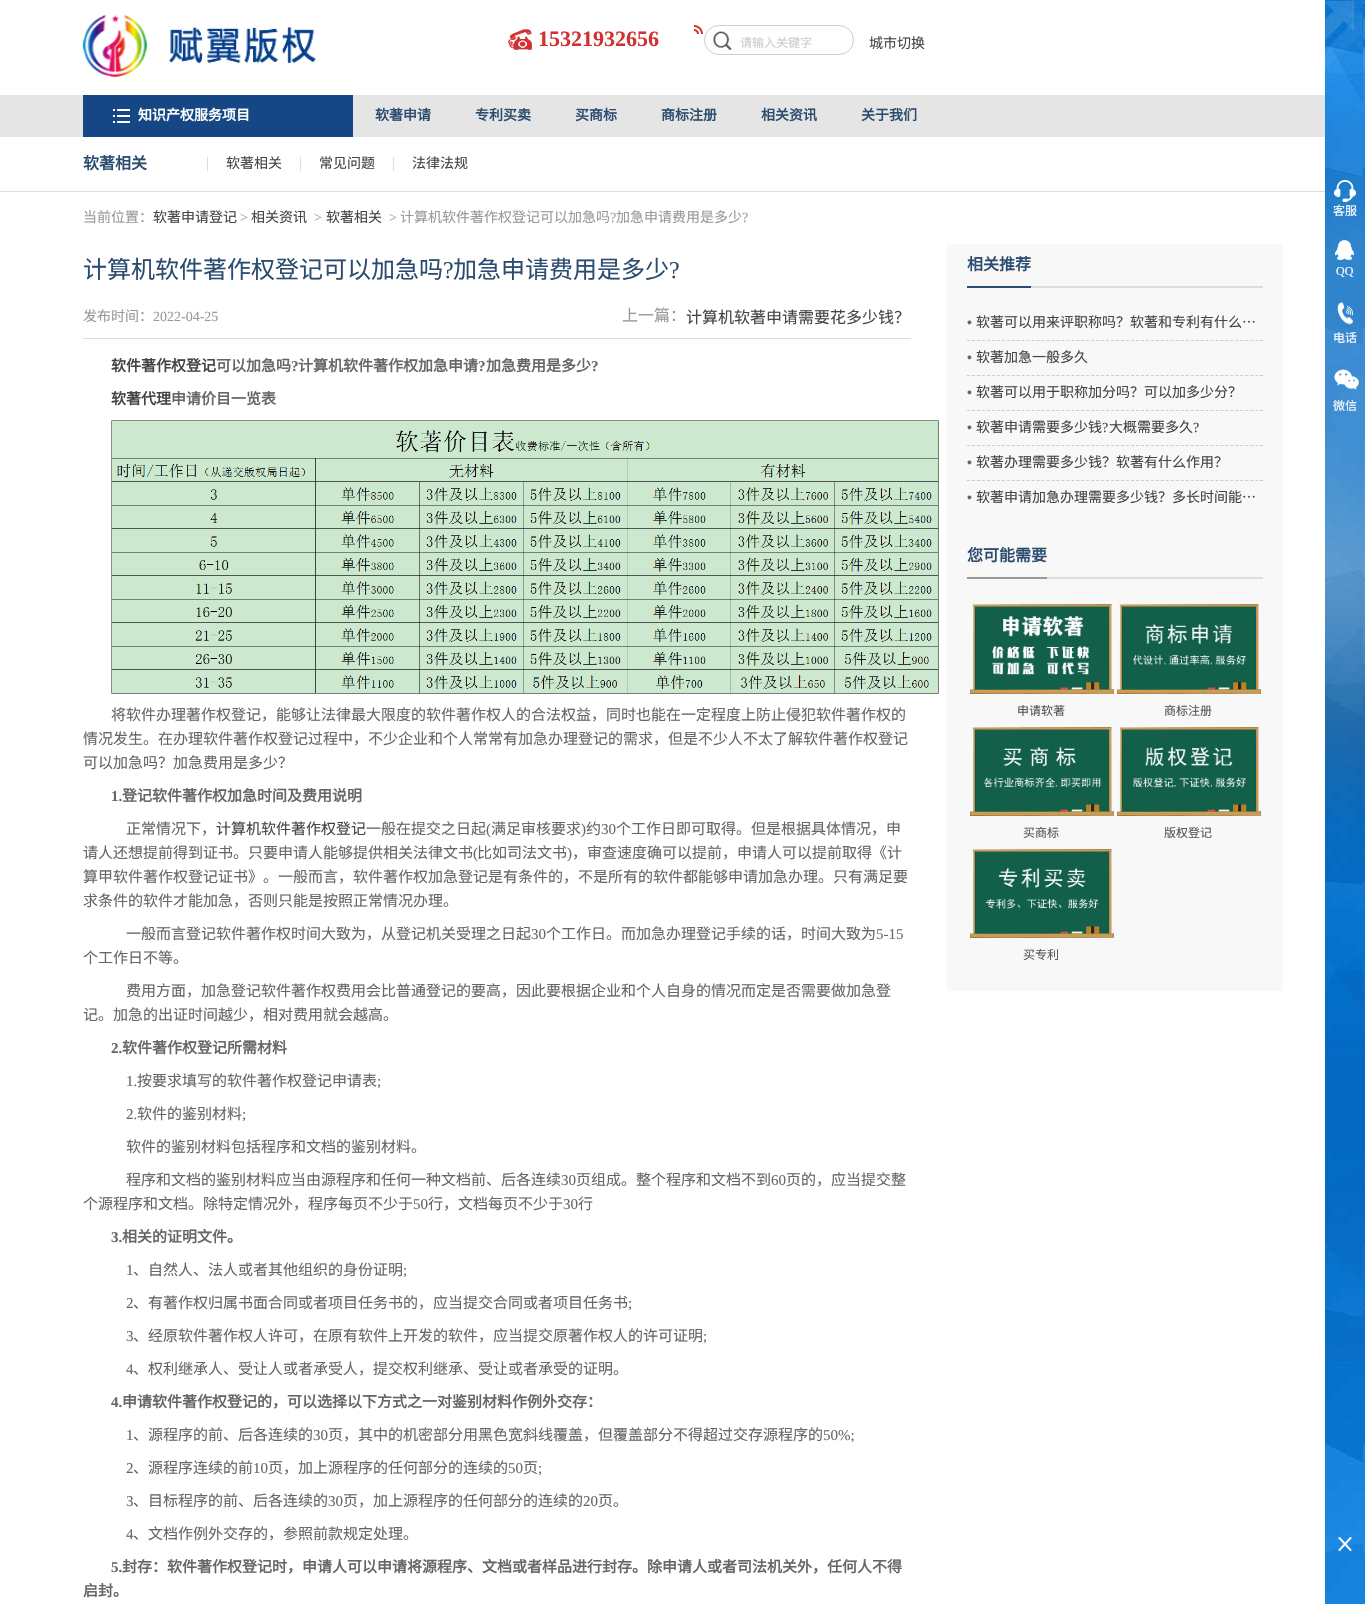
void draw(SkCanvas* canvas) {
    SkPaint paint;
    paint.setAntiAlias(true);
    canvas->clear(0xFFFFFFFF);
    canvas->drawImageRect(SkImages::DeferredFromEncodedData(SkData::MakeFromFileName("img1.png")), SkRect::MakeXYWH(83, 15, 233, 62), SkSamplingOptions());
    canvas->drawImageRect(SkImages::DeferredFromEncodedData(SkData::MakeFromFileName("img2.png")), SkRect::MakeXYWH(508, 24, 195, 26), SkSamplingOptions());
    SkFont font1(fontMgr->matchFamilyStyle("Liberation Serif", SkFontStyle::Bold()), 22);
    font1.setSubpixel(true);
    paint.setColor(0xFFD13131);
    canvas->drawString("15321932656", 538, 46, font1, paint);
    paint.setStyle(SkPaint::kStroke_Style);
    paint.setStrokeWidth(1);
    paint.setColor(0xFFCCCCCC);
    canvas->drawRoundRect(SkRect::MakeXYWH(704.5f, 25.5f, 149, 29), 14.5f, 14.5f, paint);
    canvas->drawImageRect(SkImages::DeferredFromEncodedData(SkData::MakeFromFileName("img3.png")), SkRect::MakeXYWH(713, 31, 19, 19), SkSamplingOptions());
    SkFont font2(fontMgr->matchFamilyStyle("Noto Sans CJK SC", SkFontStyle::Normal()), 12);
    font2.setSubpixel(true);
    paint.setStyle(SkPaint::kFill_Style);
    canvas->drawString("请输入关键字", 740, 47, font2, paint);
    SkFont font3(fontMgr->matchFamilyStyle("Noto Sans CJK SC", SkFontStyle::Normal()), 14);
    font3.setSubpixel(true);
    paint.setColor(0xFF444444);
    canvas->drawString("城市切换", 869, 48, font3, paint);
    paint.setColor(0xFFE5E5E5);
    canvas->drawRect(SkRect::MakeXYWH(0, 95, 1325, 42), paint);
    paint.setColor(0xFF164785);
    canvas->drawRect(SkRect::MakeXYWH(83, 95, 270, 42), paint);
    canvas->drawImageRect(SkImages::DeferredFromEncodedData(SkData::MakeFromFileName("img4.png")), SkRect::MakeXYWH(113, 109, 17, 14), SkSamplingOptions());
    SkFont font4(fontMgr->matchFamilyStyle("Noto Sans CJK SC", SkFontStyle::Bold()), 14);
    font4.setSubpixel(true);
    paint.setColor(0xFFFFFFFF);
    canvas->drawString("知识产权服务项目", 138, 120, font4, paint);
    paint.setColor(0xFF2B4C6F);
    canvas->drawString("软著申请", 375, 120, font4, paint);
    canvas->drawString("专利买卖", 475, 120, font4, paint);
    canvas->drawString("买商标", 575, 120, font4, paint);
    canvas->drawString("商标注册", 661, 120, font4, paint);
    canvas->drawString("相关资讯", 761, 120, font4, paint);
    canvas->drawString("关于我们", 861, 120, font4, paint);
    paint.setColor(0xFFDDDDDD);
    canvas->drawRect(SkRect::MakeXYWH(0, 191, 1325, 1), paint);
    canvas->drawRect(SkRect::MakeXYWH(207, 157, 1, 14), paint);
    SkFont font5(fontMgr->matchFamilyStyle("Noto Sans CJK SC", SkFontStyle::Bold()), 16);
    font5.setSubpixel(true);
    paint.setColor(0xFF2B4C6F);
    canvas->drawString("软著相关", 83, 169, font5, paint);
    paint.setColor(0xFFDDDDDD);
    canvas->drawRect(SkRect::MakeXYWH(300, 157, 1, 14), paint);
    paint.setColor(0xFF444444);
    canvas->drawString("软著相关", 226, 168, font3, paint);
    paint.setColor(0xFFDDDDDD);
    canvas->drawRect(SkRect::MakeXYWH(393, 157, 1, 14), paint);
    paint.setColor(0xFF444444);
    canvas->drawString("常见问题", 319, 168, font3, paint);
    canvas->drawString("法律法规", 412, 168, font3, paint);
    paint.setColor(0xFF999999);
    canvas->drawString("当前位置：", 83, 222, font3, paint);
    paint.setColor(0xFF444444);
    canvas->drawString("软著申请登记", 153, 222, font3, paint);
    SkFont font6(fontMgr->matchFamilyStyle("Liberation Serif", SkFontStyle::Normal()), 14);
    font6.setSubpixel(true);
    paint.setColor(0xFF999999);
    canvas->drawString(">", 240, 222, font6, paint);
    paint.setColor(0xFF444444);
    canvas->drawString("相关资讯", 251, 222, font3, paint);
    paint.setColor(0xFF999999);
    canvas->drawString(">", 314, 222, font6, paint);
    paint.setColor(0xFF444444);
    canvas->drawString("软著相关", 326, 222, font3, paint);
    paint.setColor(0xFF999999);
    canvas->drawString(">", 389, 222, font6, paint);
    canvas->drawString("计算机软件著作权登记可以加急吗", 400, 222, font3, paint);
    canvas->drawString("?", 610, 222, font6, paint);
    canvas->drawString("加急申请费用是多少", 616, 222, font3, paint);
    canvas->drawString("?", 742, 222, font6, paint);
    canvas->drawImageRect(SkImages::DeferredFromEncodedData(SkData::MakeFromFileName("img5.png")), SkRect::MakeXYWH(1325, 0, 40, 1604), SkSamplingOptions());
    canvas->drawImageRect(SkImages::DeferredFromEncodedData(SkData::MakeFromFileName("img6.png")), SkRect::MakeXYWH(1334, 180, 22, 22), SkSamplingOptions());
    paint.setColor(0xFFFFFFFF);
    canvas->drawString("客服", 1333, 215, font2, paint);
    canvas->drawImageRect(SkImages::DeferredFromEncodedData(SkData::MakeFromFileName("img7.png")), SkRect::MakeXYWH(1335, 240, 19, 20), SkSamplingOptions());
    SkFont font7(fontMgr->matchFamilyStyle("Liberation Serif", SkFontStyle::Normal()), 12);
    font7.setSubpixel(true);
    canvas->drawString("QQ", 1336, 275, font7, paint);
    canvas->drawImageRect(SkImages::DeferredFromEncodedData(SkData::MakeFromFileName("img8.png")), SkRect::MakeXYWH(1337, 302, 16, 23), SkSamplingOptions());
    canvas->drawString("电话", 1333, 342, font2, paint);
    canvas->drawImageRect(SkImages::DeferredFromEncodedData(SkData::MakeFromFileName("img9.png")), SkRect::MakeXYWH(1334, 369, 25, 21), SkSamplingOptions());
    canvas->drawString("微信", 1333, 410, font2, paint);
    canvas->drawImageRect(SkImages::DeferredFromEncodedData(SkData::MakeFromFileName("img10.png")), SkRect::MakeXYWH(1338, 1537, 14, 15), SkSamplingOptions());
    SkFont font8(fontMgr->matchFamilyStyle("Noto Sans CJK SC", SkFontStyle::Normal()), 24);
    font8.setSubpixel(true);
    paint.setColor(0xFF2B4C6F);
    canvas->drawString("计算机软件著作权登记可以加急吗", 83, 278, font8, paint);
    SkFont font9(fontMgr->matchFamilyStyle("Liberation Serif", SkFontStyle::Normal()), 24);
    font9.setSubpixel(true);
    canvas->drawString("?", 443, 278, font9, paint);
    canvas->drawString("加急申请费用是多少", 453, 278, font8, paint);
    canvas->drawString("?", 669, 278, font9, paint);
    paint.setColor(0xFFDDDDDD);
    canvas->drawRect(SkRect::MakeXYWH(83, 338, 828, 1), paint);
    paint.setColor(0xFF999999);
    canvas->drawString("发布时间：", 83, 321, font3, paint);
    canvas->drawString("2022-04-25", 153, 321, font6, paint);
    SkFont font10(fontMgr->matchFamilyStyle("Noto Sans CJK SC", SkFontStyle::Normal()), 16);
    font10.setSubpixel(true);
    canvas->drawString("上一篇：", 622, 321, font10, paint);
    paint.setColor(0xFF444444);
    canvas->drawString("计算机软著申请需要花多少钱？", 686, 323, font10, paint);
    SkFont font11(fontMgr->matchFamilyStyle("Noto Sans CJK SC", SkFontStyle::Bold()), 15);
    font11.setSubpixel(true);
    canvas->drawString("软件著作权登记", 111, 371, font11, paint);
    paint.setColor(0xFF666666);
    canvas->drawString("可以加急吗", 216, 371, font11, paint);
    SkFont font12(fontMgr->matchFamilyStyle("Liberation Serif", SkFontStyle::Bold()), 15);
    font12.setSubpixel(true);
    canvas->drawString("?", 291, 371, font12, paint);
    canvas->drawString("计算机软件著作权加急申请", 298, 371, font11, paint);
    canvas->drawString("?", 478, 371, font12, paint);
    canvas->drawString("加急费用是多少", 486, 371, font11, paint);
    canvas->drawString("?", 591, 371, font12, paint);
    paint.setColor(0xFF444444);
    canvas->drawString("软著代理", 111, 404, font11, paint);
    paint.setColor(0xFF666666);
    canvas->drawString("申请价目一览表", 171, 404, font11, paint);
    canvas->drawImageRect(SkImages::DeferredFromEncodedData(SkData::MakeFromFileName("img11.png")), SkRect::MakeXYWH(111, 420, 828, 274), SkSamplingOptions());
    SkFont font13(fontMgr->matchFamilyStyle("Noto Sans CJK SC", SkFontStyle::Normal()), 15);
    font13.setSubpixel(true);
    canvas->drawString("将软件办理著作权登记，能够让法律最大限度的软件著作权人的合法权益，同时也能在一定程度上防止侵犯软件著作权的", 111, 720, font13, paint);
    canvas->drawString("情况发生。在办理软件著作权登记过程中，不少企业和个人常常有加急办理登记的需求，但是不少人不太了解软件著作权登记", 83, 744, font13, paint);
    canvas->drawString("可以加急吗？加急费用是多少？", 83, 768, font13, paint);
    canvas->drawString("1.", 111, 801, font12, paint);
    canvas->drawString("登记软件著作权加急时间及费用说明", 122, 801, font11, paint);
    canvas->drawString("正常情况下，", 126, 834, font13, paint);
    paint.setColor(0xFF444444);
    canvas->drawString("计算机软件著作权登记", 216, 834, font13, paint);
    paint.setColor(0xFF666666);
    canvas->drawString("一般在提交之日起", 366, 834, font13, paint);
    SkFont font14(fontMgr->matchFamilyStyle("Liberation Serif", SkFontStyle::Normal()), 15);
    font14.setSubpixel(true);
    canvas->drawString("(", 486, 834, font14, paint);
    canvas->drawString("满足审核要求", 491, 834, font13, paint);
    canvas->drawString(")", 581, 834, font14, paint);
    canvas->drawString("约", 586, 834, font13, paint);
    canvas->drawString("30", 601, 834, font14, paint);
    canvas->drawString("个工作日即可取得。但是根据具体情况，申", 616, 834, font13, paint);
    canvas->drawString("请人还想提前得到证书。只要申请人能够提供相关法律文书", 83, 858, font13, paint);
    canvas->drawString("(", 473, 858, font14, paint);
    canvas->drawString("比如司法文书", 477, 858, font13, paint);
    canvas->drawString(")", 567, 858, font14, paint);
    canvas->drawString("，审查速度确可以提前，申请人可以提前取得《计", 572, 858, font13, paint);
    canvas->drawString("算甲软件著作权登记证书》。一般而言，软件著作权加急登记是有条件的，不是所有的软件都能够申请加急办理。只有满足要", 83, 882, font13, paint);
    canvas->drawString("求条件的软件才能加急，否则只能是按照正常情况办理。", 83, 906, font13, paint);
    canvas->drawString("一般而言登记软件著作权时间大致为，从登记机关受理之日起", 126, 939, font13, paint);
    canvas->drawString("30", 531, 939, font14, paint);
    canvas->drawString("个工作日。而加急办理登记手续的话，时间大致为", 546, 939, font13, paint);
    canvas->drawString("5-15", 876, 939, font14, paint);
    canvas->drawString("个工作日不等。", 83, 963, font13, paint);
    canvas->drawString("费用方面，加急登记软件著作权费用会比普通登记的要高，因此要根据企业和个人自身的情况而定是否需要做加急登", 126, 996, font13, paint);
    canvas->drawString("记。加急的出证时间越少，相对费用就会越高。", 83, 1020, font13, paint);
    canvas->drawString("2.", 111, 1053, font12, paint);
    canvas->drawString("软件著作权登记所需材料", 122, 1053, font11, paint);
    canvas->drawString("1.", 126, 1086, font14, paint);
    canvas->drawString("按要求填写的软件著作权登记申请表", 137, 1086, font13, paint);
    canvas->drawString(";", 377, 1086, font14, paint);
    canvas->drawString("2.", 126, 1119, font14, paint);
    canvas->drawString("软件的鉴别材料", 137, 1119, font13, paint);
    canvas->drawString(";", 242, 1119, font14, paint);
    canvas->drawString("软件的鉴别材料包括程序和文档的鉴别材料。", 126, 1152, font13, paint);
    canvas->drawString("程序和文档的鉴别材料应当由源程序和任何一种文档前、后各连续", 126, 1185, font13, paint);
    canvas->drawString("30", 561, 1185, font14, paint);
    canvas->drawString("页组成。整个程序和文档不到", 576, 1185, font13, paint);
    canvas->drawString("60", 771, 1185, font14, paint);
    canvas->drawString("页的，应当提交整", 786, 1185, font13, paint);
    canvas->drawString("个源程序和文档。除特定情况外，程序每页不少于", 83, 1209, font13, paint);
    canvas->drawString("50", 413, 1209, font14, paint);
    canvas->drawString("行，文档每页不少于", 428, 1209, font13, paint);
    canvas->drawString("30", 563, 1209, font14, paint);
    canvas->drawString("行", 578, 1209, font13, paint);
    canvas->drawString("3.", 111, 1242, font12, paint);
    canvas->drawString("相关的证明文件。", 122, 1242, font11, paint);
    canvas->drawString("1", 126, 1275, font14, paint);
    canvas->drawString("、自然人、法人或者其他组织的身份证明", 133, 1275, font13, paint);
    canvas->drawString(";", 403, 1275, font14, paint);
    canvas->drawString("2", 126, 1308, font14, paint);
    canvas->drawString("、有著作权归属书面合同或者项目任务书的，应当提交合同或者项目任务书", 133, 1308, font13, paint);
    canvas->drawString(";", 628, 1308, font14, paint);
    canvas->drawString("3", 126, 1341, font14, paint);
    canvas->drawString("、经原软件著作权人许可，在原有软件上开发的软件，应当提交原著作权人的许可证明", 133, 1341, font13, paint);
    canvas->drawString(";", 703, 1341, font14, paint);
    canvas->drawString("4", 126, 1374, font14, paint);
    canvas->drawString("、权利继承人、受让人或者承受人，提交权利继承、受让或者承受的证明。", 133, 1374, font13, paint);
    canvas->drawString("4.", 111, 1407, font12, paint);
    canvas->drawString("申请软件著作权登记的，可以选择以下方式之一对鉴别材料作例外交存：", 122, 1407, font11, paint);
    canvas->drawString("1", 126, 1440, font14, paint);
    canvas->drawString("、源程序的前、后各连续的", 133, 1440, font13, paint);
    canvas->drawString("30", 313, 1440, font14, paint);
    canvas->drawString("页，其中的机密部分用黑色宽斜线覆盖，但覆盖部分不得超过交存源程序的", 328, 1440, font13, paint);
    canvas->drawString("50%;", 823, 1440, font14, paint);
    canvas->drawString("2", 126, 1473, font14, paint);
    canvas->drawString("、源程序连续的前", 133, 1473, font13, paint);
    canvas->drawString("10", 253, 1473, font14, paint);
    canvas->drawString("页，加上源程序的任何部分的连续的", 268, 1473, font13, paint);
    canvas->drawString("50", 508, 1473, font14, paint);
    canvas->drawString("页", 523, 1473, font13, paint);
    canvas->drawString(";", 538, 1473, font14, paint);
    canvas->drawString("3", 126, 1506, font14, paint);
    canvas->drawString("、目标程序的前、后各连续的", 133, 1506, font13, paint);
    canvas->drawString("30", 328, 1506, font14, paint);
    canvas->drawString("页，加上源程序的任何部分的连续的", 343, 1506, font13, paint);
    canvas->drawString("20", 583, 1506, font14, paint);
    canvas->drawString("页。", 598, 1506, font13, paint);
    canvas->drawString("4", 126, 1539, font14, paint);
    canvas->drawString("、文档作例外交存的，参照前款规定处理。", 133, 1539, font13, paint);
    canvas->drawString("5.", 111, 1572, font12, paint);
    canvas->drawString("封存：软件著作权登记时，申请人可以申请将源程序、文档或者样品进行封存。除申请人或者司法机关外，任何人不得", 122, 1572, font11, paint);
    canvas->drawString("启封。", 83, 1596, font11, paint);
    paint.setColor(0xFFF8F8F8);
    canvas->drawRect(SkRect::MakeXYWH(947, 244, 336, 747), paint);
    paint.setColor(0xFFDDDDDD);
    canvas->drawRect(SkRect::MakeXYWH(1031, 286, 232, 2), paint);
    paint.setColor(0xFF2B4C6F);
    canvas->drawRect(SkRect::MakeXYWH(967, 286, 64, 2), paint);
    canvas->drawString("相关推荐", 967, 270, font5, paint);
    paint.setStyle(SkPaint::kStroke_Style);
    paint.setColor(0xFFCCCCCC);
    paint.setPathEffect(SkDashPathEffect::Make({{3, 1.97f}}, 0));
    canvas->drawPath(SkPathBuilder().moveTo(967, 340.5f).lineTo(1263, 340.5f).detach(), paint);
    paint.setPathEffect(nullptr);
    SkFont font15(fontMgr->matchFamilyStyle("Liberation Serif", SkFontStyle::Bold()), 14);
    font15.setSubpixel(true);
    paint.setStyle(SkPaint::kFill_Style);
    paint.setColor(0xFF666666);
    canvas->drawString("•", 967, 327, font15, paint);
    paint.setColor(0xFF444444);
    canvas->drawString("软著可以用来评职称吗？软著和专利有什么…", 976, 327, font3, paint);
    paint.setStyle(SkPaint::kStroke_Style);
    paint.setColor(0xFFCCCCCC);
    paint.setPathEffect(SkDashPathEffect::Make({{3, 1.97f}}, 0));
    canvas->drawPath(SkPathBuilder().moveTo(967, 375.5f).lineTo(1263, 375.5f).detach(), paint);
    paint.setPathEffect(nullptr);
    paint.setStyle(SkPaint::kFill_Style);
    paint.setColor(0xFF666666);
    canvas->drawString("•", 967, 362, font15, paint);
    paint.setColor(0xFF444444);
    canvas->drawString("软著加急一般多久", 976, 362, font3, paint);
    paint.setStyle(SkPaint::kStroke_Style);
    paint.setColor(0xFFCCCCCC);
    paint.setPathEffect(SkDashPathEffect::Make({{3, 1.97f}}, 0));
    canvas->drawPath(SkPathBuilder().moveTo(967, 410.5f).lineTo(1263, 410.5f).detach(), paint);
    paint.setPathEffect(nullptr);
    paint.setStyle(SkPaint::kFill_Style);
    paint.setColor(0xFF666666);
    canvas->drawString("•", 967, 397, font15, paint);
    paint.setColor(0xFF444444);
    canvas->drawString("软著可以用于职称加分吗？可以加多少分？", 976, 397, font3, paint);
    paint.setStyle(SkPaint::kStroke_Style);
    paint.setColor(0xFFCCCCCC);
    paint.setPathEffect(SkDashPathEffect::Make({{3, 1.97f}}, 0));
    canvas->drawPath(SkPathBuilder().moveTo(967, 445.5f).lineTo(1263, 445.5f).detach(), paint);
    paint.setPathEffect(nullptr);
    paint.setStyle(SkPaint::kFill_Style);
    paint.setColor(0xFF666666);
    canvas->drawString("•", 967, 432, font15, paint);
    paint.setColor(0xFF444444);
    canvas->drawString("软著申请需要多少钱", 976, 432, font3, paint);
    canvas->drawString("?", 1102, 432, font6, paint);
    canvas->drawString("大概需要多久", 1109, 432, font3, paint);
    canvas->drawString("?", 1193, 432, font6, paint);
    paint.setStyle(SkPaint::kStroke_Style);
    paint.setColor(0xFFCCCCCC);
    paint.setPathEffect(SkDashPathEffect::Make({{3, 1.97f}}, 0));
    canvas->drawPath(SkPathBuilder().moveTo(967, 480.5f).lineTo(1263, 480.5f).detach(), paint);
    paint.setPathEffect(nullptr);
    paint.setStyle(SkPaint::kFill_Style);
    paint.setColor(0xFF666666);
    canvas->drawString("•", 967, 467, font15, paint);
    paint.setColor(0xFF444444);
    canvas->drawString("软著办理需要多少钱？软著有什么作用？", 976, 467, font3, paint);
    paint.setColor(0xFF666666);
    canvas->drawString("•", 967, 502, font15, paint);
    paint.setColor(0xFF444444);
    canvas->drawString("软著申请加急办理需要多少钱？多长时间能…", 976, 502, font3, paint);
    paint.setColor(0xFFDDDDDD);
    canvas->drawRect(SkRect::MakeXYWH(1047, 577, 216, 2), paint);
    paint.setColor(0xFF999999);
    canvas->drawRect(SkRect::MakeXYWH(967, 577, 80, 2), paint);
    paint.setColor(0xFF2B4C6F);
    canvas->drawString("您可能需要", 967, 561, font5, paint);
    canvas->drawImageRect(SkImages::DeferredFromEncodedData(SkData::MakeFromFileName("img12.png")), SkRect::MakeXYWH(970, 604, 144, 90), SkSamplingOptions());
    paint.setColor(0xFF555555);
    canvas->drawString("申请软著", 1017, 715, font2, paint);
    canvas->drawImageRect(SkImages::DeferredFromEncodedData(SkData::MakeFromFileName("img13.png")), SkRect::MakeXYWH(1117, 604, 144, 90), SkSamplingOptions());
    canvas->drawString("商标注册", 1164, 715, font2, paint);
    canvas->drawImageRect(SkImages::DeferredFromEncodedData(SkData::MakeFromFileName("img14.png")), SkRect::MakeXYWH(970, 727, 144, 89), SkSamplingOptions());
    canvas->drawString("买商标", 1023, 837, font2, paint);
    canvas->drawImageRect(SkImages::DeferredFromEncodedData(SkData::MakeFromFileName("img15.png")), SkRect::MakeXYWH(1117, 727, 144, 89), SkSamplingOptions());
    canvas->drawString("版权登记", 1164, 837, font2, paint);
    canvas->drawImageRect(SkImages::DeferredFromEncodedData(SkData::MakeFromFileName("img16.png")), SkRect::MakeXYWH(970, 849, 144, 89), SkSamplingOptions());
    canvas->drawString("买专利", 1023, 959, font2, paint);
}
